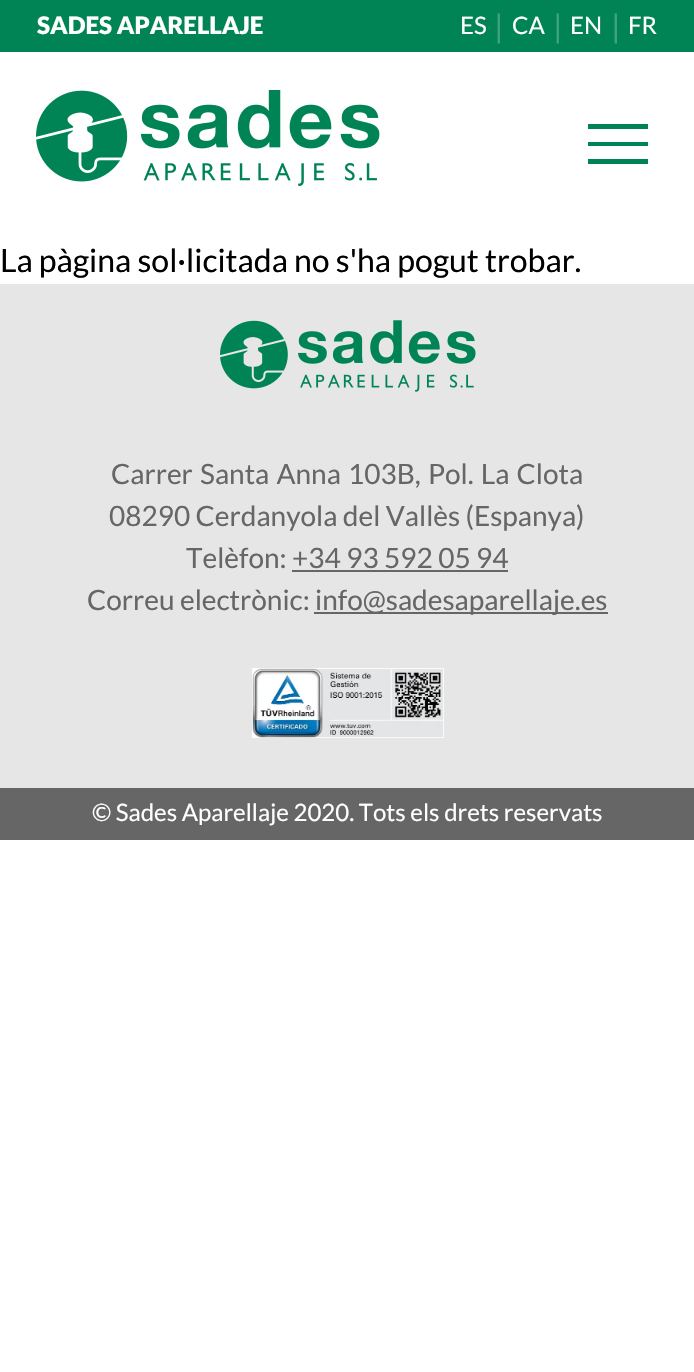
void draw(SkCanvas* canvas) {
    SkPaint paint;
    paint.setAntiAlias(true);
    auto spacedText = [&](const char* s, float x, float y, const SkFont& font, const SkPaint& ink, float letter, float word) {
        std::vector<SkGlyphID> glyphs(font.countText(s, strlen(s), SkTextEncoding::kUTF8));
        std::vector<float> xs(glyphs.size());
        font.textToGlyphs(s, strlen(s), SkTextEncoding::kUTF8, glyphs);
        font.getXPos(glyphs, xs, x);
        float extra = 0;
        for (size_t i = 0; i < glyphs.size(); i++) {
            xs[i] += extra;
            extra += letter + word * (glyphs[i] == font.unicharToGlyph(' '));
        }
        canvas->drawTextBlob(SkTextBlob::MakeFromPosHGlyphs(glyphs, xs, y, font), 0, 0, ink);
    };
    canvas->clear(0xFFFFFFFF);
    paint.setColor(0xFF008455);
    canvas->drawRect(SkRect::MakeXYWH(0, 0, 694, 52), paint);
    SkFont font1(fontMgr->matchFamilyStyle("Lato", SkFontStyle(900, SkFontStyle::kNormal_Width, SkFontStyle::kUpright_Slant)), 24);
    font1.setSubpixel(true);
    paint.setColor(0xFFFFFFFF);
    canvas->drawString("SADES APARELLAJE", 37, 34, font1, paint);
    SkFont font2(fontMgr->matchFamilyStyle("Lato", SkFontStyle::Normal()), 24);
    font2.setSubpixel(true);
    canvas->drawString("ES", 460, 34, font2, paint);
    SkFont font3(fontMgr->matchFamilyStyle("Lato", SkFontStyle::Normal()), 32);
    font3.setSubpixel(true);
    paint.setColor(0xFF40A380);
    canvas->drawString("|", 494, 38, font3, paint);
    paint.setColor(0xFFFFFFFF);
    canvas->drawString("CA", 512, 34, font2, paint);
    paint.setColor(0xFF40A380);
    canvas->drawString("|", 553, 38, font3, paint);
    paint.setColor(0xFFFFFFFF);
    canvas->drawString("EN", 570, 34, font2, paint);
    paint.setColor(0xFF40A380);
    canvas->drawString("|", 611, 38, font3, paint);
    paint.setColor(0xFFFFFFFF);
    canvas->drawString("FR", 628, 34, font2, paint);
    canvas->drawImageRect(SkImages::DeferredFromEncodedData(SkData::MakeFromFileName("img1.png")), SkRect::MakeXYWH(36, 90, 344, 96), SkSamplingOptions());
    paint.setColor(0xFF008455);
    canvas->drawPath(SkPathBuilder().moveTo(588, 164).lineTo(588, 159).lineTo(648, 159).lineTo(648, 164).close().moveTo(588, 146).lineTo(588, 142).lineTo(648, 142).lineTo(648, 146).close().moveTo(588, 129).lineTo(588, 124).lineTo(648, 124).lineTo(648, 129).close().detach(), paint);
    paint.setColor(0xFF000000);
    canvas->drawString("La pàgina sol·licitada no s'ha pogut trobar.", 0, 272, font3, paint);
    paint.setColor(0xFFE6E6E6);
    canvas->drawRect(SkRect::MakeXYWH(0, 284, 694, 504), paint);
    canvas->drawImageRect(SkImages::DeferredFromEncodedData(SkData::MakeFromFileName("img2.png")), SkRect::MakeXYWH(220, 320, 256, 72), SkSamplingOptions());
    SkFont font4(fontMgr->matchFamilyStyle("Lato", SkFontStyle::Normal()), 28);
    font4.setSubpixel(true);
    paint.setColor(0xFF666666);
    spacedText("Carrer Santa Anna 103B, Pol. La Clota", 111, 484, font4, paint, 0, 1.75f);
    canvas->drawString("08290 Cerdanyola del Vallès (Espanya)", 109, 526, font4, paint);
    canvas->drawString("Telèfon: +34 93 592 05 94", 186, 568, font4, paint);
    canvas->drawRect(SkRect::MakeXYWH(292, 570, 216, 2), paint);
    canvas->drawString("Correu electrònic:", 87, 610, font4, paint);
    canvas->drawRect(SkRect::MakeXYWH(314, 612, 294, 2), paint);
    canvas->drawString("info@sadesaparellaje.es", 315, 610, font4, paint);
    canvas->drawImageRect(SkImages::DeferredFromEncodedData(SkData::MakeFromFileName("img3.png")), SkRect::MakeXYWH(252, 668, 192, 70), SkSamplingOptions());
    canvas->drawRect(SkRect::MakeXYWH(0, 788, 694, 52), paint);
    paint.setColor(0xFFFFFFFF);
    canvas->drawString("© Sades Aparellaje 2020. Tots els drets reservats", 92, 821, font2, paint);
}
